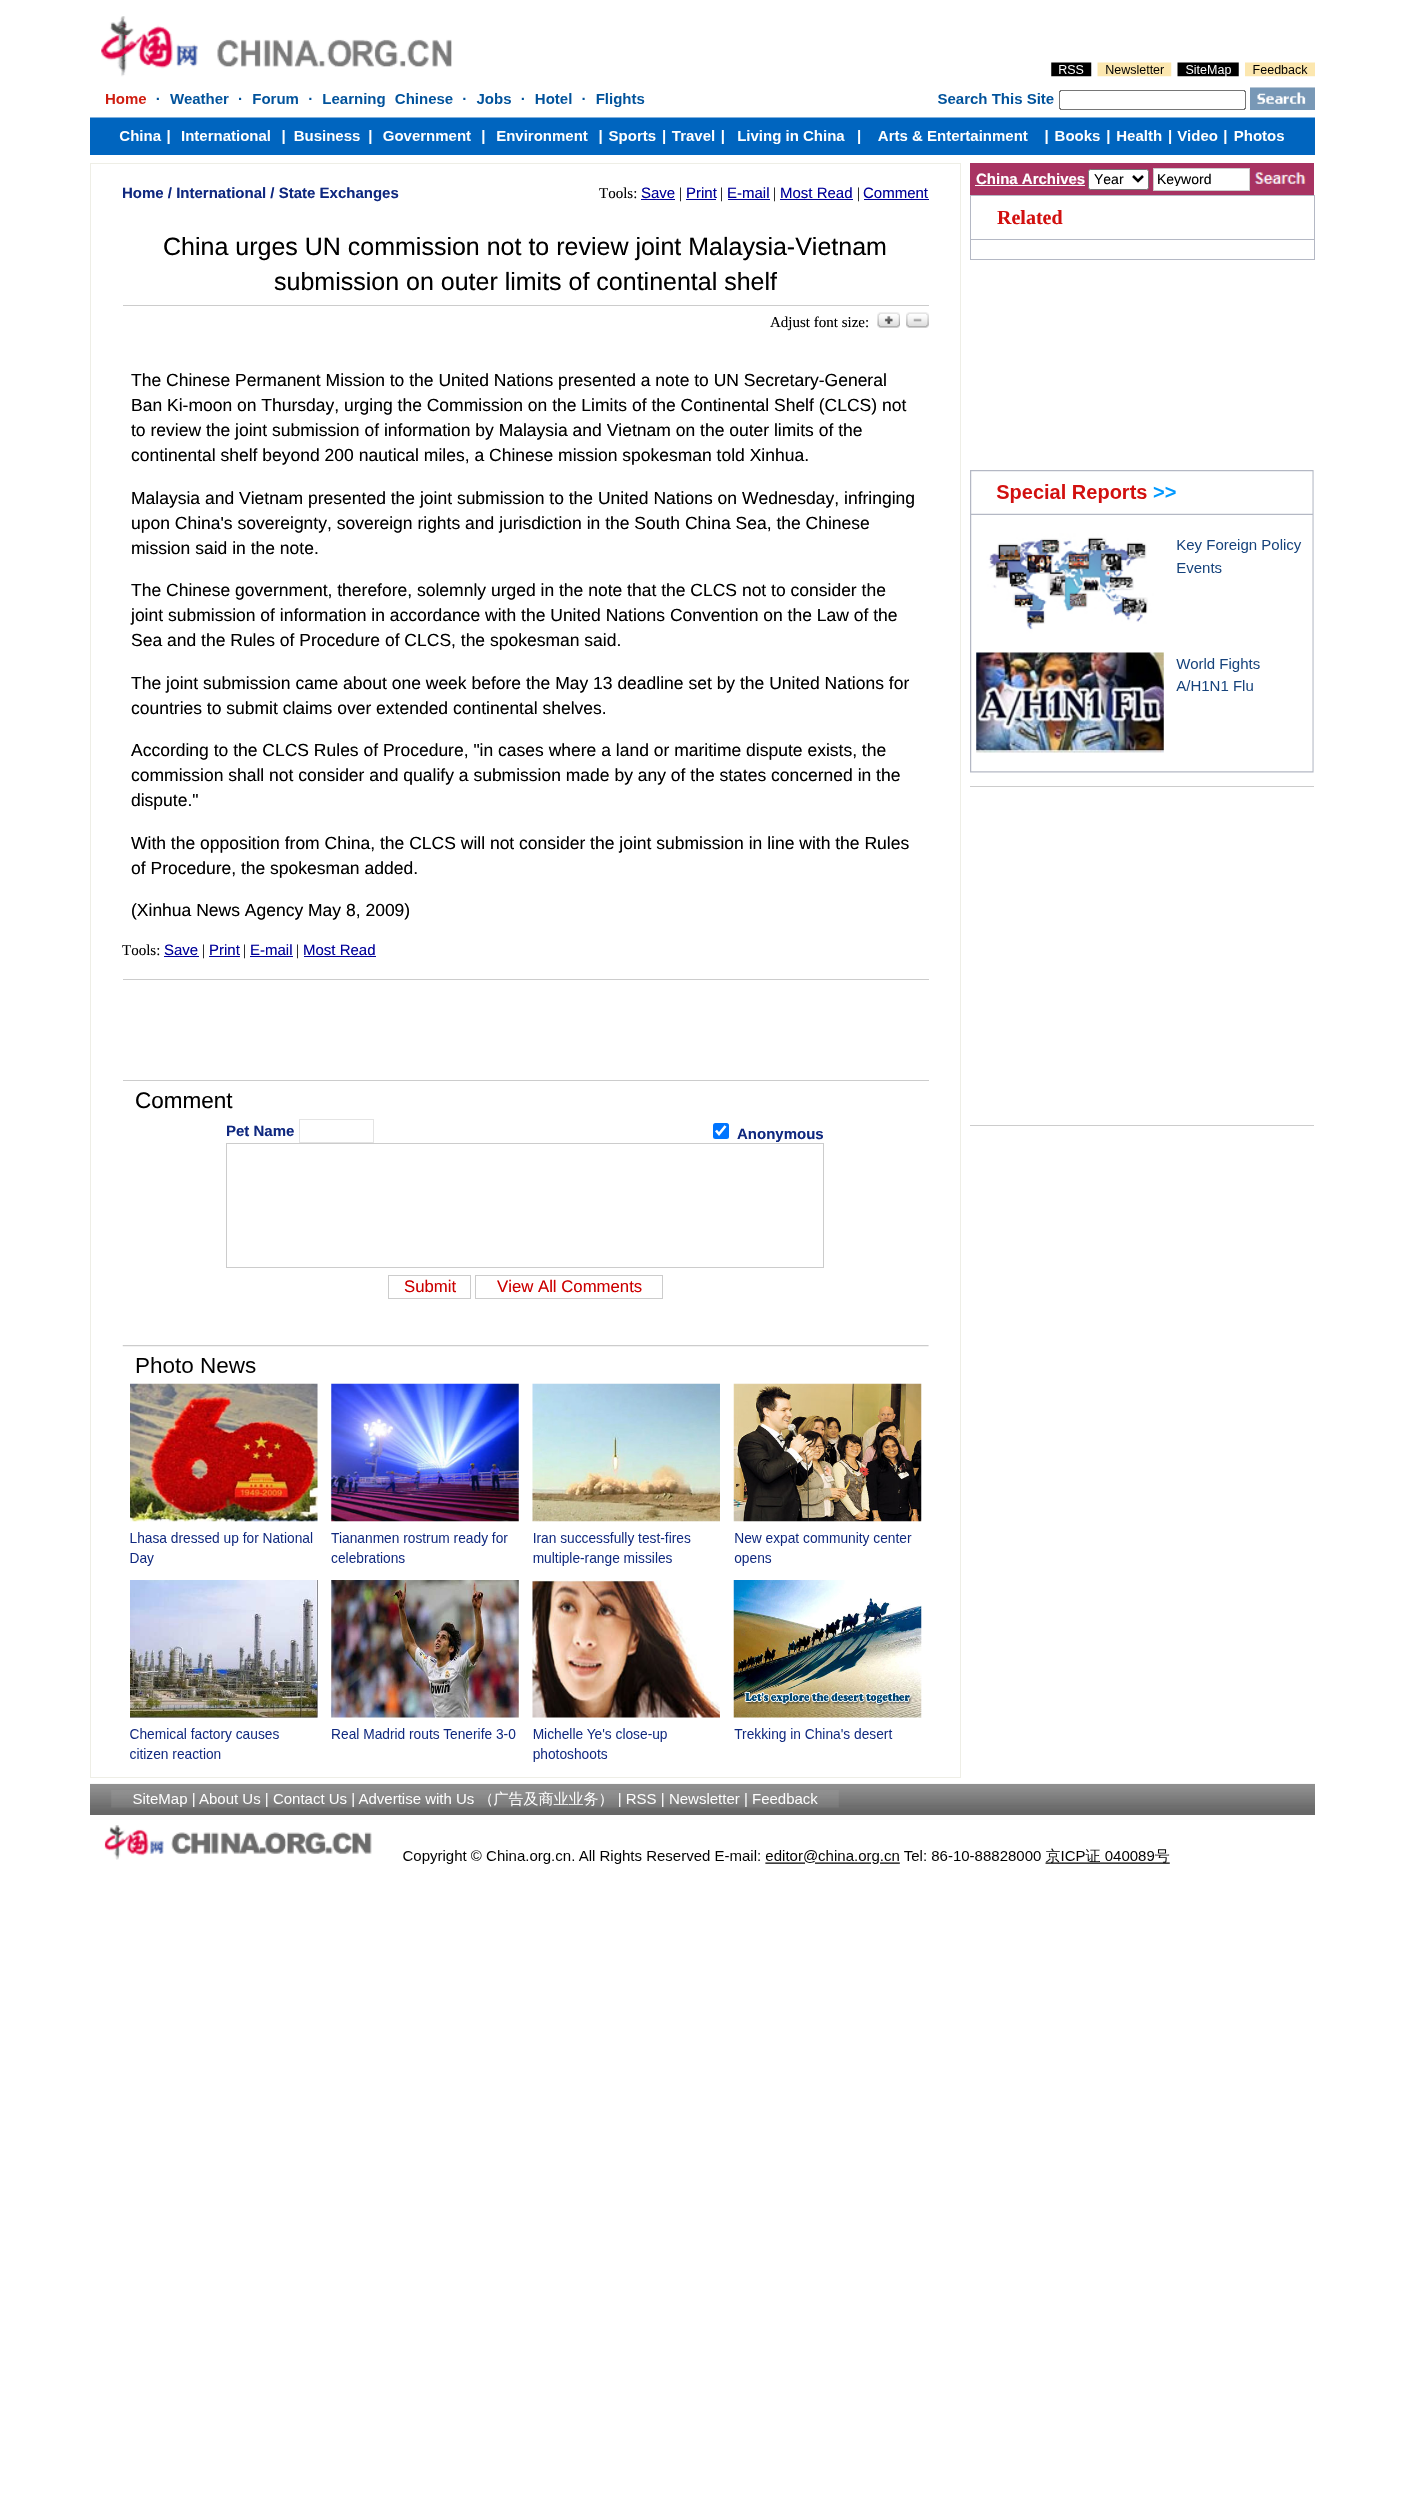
void draw(SkCanvas* canvas) {
    SkPaint paint;
    paint.setAntiAlias(true);
    canvas->clear(0xFFFFFFFF);
    canvas->drawImageRect(SkImages::DeferredFromEncodedData(SkData::MakeFromFileName("img1.png")), SkRect::MakeXYWH(90, 16, 1225, 139), SkSamplingOptions());
    paint.setStyle(SkPaint::kStroke_Style);
    paint.setStrokeWidth(1);
    paint.setColor(0xFFEEEEE6);
    canvas->drawRect(SkRect::MakeXYWH(90.5f, 163.5f, 870, 1614), paint);
    SkFont font1(fontMgr->matchFamilyStyle("Liberation Sans", SkFontStyle::Bold()), 15);
    font1.setSubpixel(true);
    paint.setStyle(SkPaint::kFill_Style);
    paint.setColor(0xFF0F287F);
    canvas->drawString("Home / International / State Exchanges", 122, 198, font1, paint);
    SkFont font2(fontMgr->matchFamilyStyle("Liberation Serif", SkFontStyle::Normal()), 15);
    font2.setSubpixel(true);
    paint.setColor(0xFF000000);
    canvas->drawString("Tools:", 599, 198, font2, paint);
    SkFont font3(fontMgr->matchFamilyStyle("Liberation Sans", SkFontStyle::Normal()), 15);
    font3.setSubpixel(true);
    paint.setColor(0xFF000099);
    canvas->drawString("Save", 641, 198, font3, paint);
    canvas->drawRect(SkRect::MakeXYWH(641, 199, 34, 1), paint);
    paint.setColor(0xFF000000);
    canvas->drawString("|", 679, 198, font2, paint);
    paint.setColor(0xFF000099);
    canvas->drawString("Print", 686, 198, font3, paint);
    canvas->drawRect(SkRect::MakeXYWH(686, 199, 30, 1), paint);
    paint.setColor(0xFF000000);
    canvas->drawString("|", 720, 198, font2, paint);
    paint.setColor(0xFF000099);
    canvas->drawString("E-mail", 727, 198, font3, paint);
    canvas->drawRect(SkRect::MakeXYWH(728, 199, 42, 1), paint);
    paint.setColor(0xFF000000);
    canvas->drawString("|", 773, 198, font2, paint);
    paint.setColor(0xFF000099);
    canvas->drawString("Most Read", 780, 198, font3, paint);
    canvas->drawRect(SkRect::MakeXYWH(780, 199, 73, 1), paint);
    paint.setColor(0xFF000000);
    canvas->drawString("|", 857, 198, font2, paint);
    paint.setColor(0xFF000099);
    canvas->drawString("Comment", 863, 198, font3, paint);
    canvas->drawRect(SkRect::MakeXYWH(864, 199, 65, 1), paint);
    SkFont font4(fontMgr->matchFamilyStyle("Liberation Sans", SkFontStyle::Normal()), 25);
    font4.setSubpixel(true);
    paint.setColor(0xFF000000);
    canvas->drawString("China urges UN commission not to review joint Malaysia-Vietnam", 163, 255, font4, paint);
    canvas->drawString("submission on outer limits of continental shelf", 274, 290, font4, paint);
    paint.setColor(0xFFCCCCCC);
    canvas->drawRect(SkRect::MakeXYWH(123, 305, 806, 1), paint);
    paint.setColor(0xFF000000);
    canvas->drawString("Adjust font size:", 770, 327, font2, paint);
    canvas->drawImageRect(SkImages::DeferredFromEncodedData(SkData::MakeFromFileName("img2.png")), SkRect::MakeXYWH(877, 312, 23, 16), SkSamplingOptions());
    canvas->drawImageRect(SkImages::DeferredFromEncodedData(SkData::MakeFromFileName("img3.png")), SkRect::MakeXYWH(906, 312, 23, 16), SkSamplingOptions());
    SkFont font5(fontMgr->matchFamilyStyle("Liberation Sans", SkFontStyle::Normal()), 17.5f);
    font5.setSubpixel(true);
    canvas->drawString("The Chinese Permanent Mission to the United Nations presented a note to UN Secretary-General", 131, 386, font5, paint);
    canvas->drawString("Ban Ki-moon on Thursday, urging the Commission on the Limits of the Continental Shelf (CLCS) not", 131, 411, font5, paint);
    canvas->drawString("to review the joint submission of information by Malaysia and Vietnam on the outer limits of the", 131, 436, font5, paint);
    canvas->drawString("continental shelf beyond 200 nautical miles, a Chinese mission spokesman told Xinhua.", 131, 461, font5, paint);
    canvas->drawString("Malaysia and Vietnam presented the joint submission to the United Nations on Wednesday, infringing", 131, 504, font5, paint);
    canvas->drawString("upon China's sovereignty, sovereign rights and jurisdiction in the South China Sea, the Chinese", 131, 529, font5, paint);
    canvas->drawString("mission said in the note.", 131, 554, font5, paint);
    canvas->drawString("The Chinese government, therefore, solemnly urged in the note that the CLCS not to consider the", 131, 596, font5, paint);
    canvas->drawString("joint submission of information in accordance with the United Nations Convention on the Law of the", 131, 621, font5, paint);
    canvas->drawString("Sea and the Rules of Procedure of CLCS, the spokesman said.", 131, 646, font5, paint);
    canvas->drawString("The joint submission came about one week before the May 13 deadline set by the United Nations for", 131, 689, font5, paint);
    canvas->drawString("countries to submit claims over extended continental shelves.", 131, 714, font5, paint);
    canvas->drawString("According to the CLCS Rules of Procedure, \"in cases where a land or maritime dispute exists, the", 131, 756, font5, paint);
    canvas->drawString("commission shall not consider and qualify a submission made by any of the states concerned in the", 131, 781, font5, paint);
    canvas->drawString("dispute.\"", 131, 806, font5, paint);
    canvas->drawString("With the opposition from China, the CLCS will not consider the joint submission in line with the Rules", 131, 849, font5, paint);
    canvas->drawString("of Procedure, the spokesman added.", 131, 874, font5, paint);
    canvas->drawString("(Xinhua News Agency May 8, 2009)", 131, 916, font5, paint);
    canvas->drawString("Tools:", 122, 955, font2, paint);
    paint.setColor(0xFF000099);
    canvas->drawString("Save", 164, 955, font3, paint);
    canvas->drawRect(SkRect::MakeXYWH(164, 956, 35, 1), paint);
    paint.setColor(0xFF000000);
    canvas->drawString("|", 202, 955, font2, paint);
    paint.setColor(0xFF000099);
    canvas->drawString("Print", 209, 955, font3, paint);
    canvas->drawRect(SkRect::MakeXYWH(209, 956, 31, 1), paint);
    paint.setColor(0xFF000000);
    canvas->drawString("|", 243, 955, font2, paint);
    paint.setColor(0xFF000099);
    canvas->drawString("E-mail", 250, 955, font3, paint);
    canvas->drawRect(SkRect::MakeXYWH(250, 956, 43, 1), paint);
    paint.setColor(0xFF000000);
    canvas->drawString("|", 296, 955, font2, paint);
    paint.setColor(0xFF000099);
    canvas->drawString("Most Read", 303, 955, font3, paint);
    canvas->drawRect(SkRect::MakeXYWH(304, 956, 72, 1), paint);
    paint.setColor(0xFFCCCCCC);
    canvas->drawRect(SkRect::MakeXYWH(123, 979, 806, 1), paint);
    canvas->drawRect(SkRect::MakeXYWH(123, 1080, 806, 1), paint);
    SkFont font6(fontMgr->matchFamilyStyle("Liberation Sans", SkFontStyle::Normal()), 22.5f);
    font6.setSubpixel(true);
    paint.setColor(0xFF000000);
    canvas->drawString("Comment", 135, 1108, font6, paint);
    paint.setColor(0xFF0F287F);
    canvas->drawString("Pet Name", 226, 1136, font1, paint);
    paint.setStyle(SkPaint::kStroke_Style);
    paint.setColor(0xFFE4E4E4);
    canvas->drawRect(SkRect::MakeXYWH(299.5f, 1119.5f, 74, 23), paint);
    paint.setStyle(SkPaint::kFill_Style);
    paint.setColor(0xFF0075FF);
    canvas->drawRoundRect(SkRect::MakeXYWH(713, 1123, 16, 16), 2.5f, 2.5f, paint);
    paint.setStyle(SkPaint::kStroke_Style);
    paint.setStrokeWidth(2.6f);
    paint.setColor(0xFFFFFFFF);
    canvas->drawPath(SkPathBuilder().moveTo(716, 1130.5f).lineTo(719, 1134).lineTo(725.5f, 1126).detach(), paint);
    paint.setStyle(SkPaint::kFill_Style);
    paint.setColor(0xFF0F287F);
    canvas->drawString("Anonymous", 737, 1139, font1, paint);
    paint.setStyle(SkPaint::kStroke_Style);
    paint.setStrokeWidth(1);
    paint.setColor(0xFFCCCCCC);
    canvas->drawRect(SkRect::MakeXYWH(226.5f, 1143.5f, 597, 124), paint);
    canvas->drawRect(SkRect::MakeXYWH(388.5f, 1275.5f, 82, 23), paint);
    SkFont font7(fontMgr->matchFamilyStyle("Liberation Sans", SkFontStyle::Normal()), 16.75f);
    font7.setSubpixel(true);
    paint.setStyle(SkPaint::kFill_Style);
    paint.setColor(0xFFCC0000);
    canvas->drawString("Submit", 404, 1292, font7, paint);
    paint.setStyle(SkPaint::kStroke_Style);
    paint.setColor(0xFFCCCCCC);
    canvas->drawRect(SkRect::MakeXYWH(475.5f, 1275.5f, 187, 23), paint);
    paint.setStyle(SkPaint::kFill_Style);
    paint.setColor(0xFFCC0000);
    canvas->drawString("View All Comments", 497, 1292, font7, paint);
    canvas->drawImageRect(SkImages::DeferredFromEncodedData(SkData::MakeFromFileName("img4.png")), SkRect::MakeXYWH(122, 1345, 807, 417), SkSamplingOptions());
    paint.setColor(0xFFA83362);
    canvas->drawRect(SkRect::MakeXYWH(970, 163, 344, 32), paint);
    paint.setColor(0xFFFFFFFF);
    canvas->drawString("China Archives", 976, 184, font1, paint);
    canvas->drawRect(SkRect::MakeXYWH(975, 185, 110, 1), paint);
    canvas->drawRoundRect(SkRect::MakeXYWH(1088.5f, 169.5f, 60, 20), 2, 2, paint);
    paint.setStyle(SkPaint::kStroke_Style);
    paint.setColor(0xFF767676);
    canvas->drawRoundRect(SkRect::MakeXYWH(1088.5f, 169.5f, 60, 20), 2, 2, paint);
    paint.setStrokeWidth(2.5f);
    paint.setColor(0xFF000000);
    canvas->drawPath(SkPathBuilder().moveTo(1133, 176).lineTo(1138, 181).lineTo(1143, 176).detach(), paint);
    SkFont font8(fontMgr->matchFamilyStyle("Liberation Sans", SkFontStyle::Normal()), 14);
    font8.setSubpixel(true);
    paint.setStyle(SkPaint::kFill_Style);
    canvas->drawString("Year", 1094, 184, font8, paint);
    paint.setColor(0xFFFFFFFF);
    canvas->drawRect(SkRect::MakeXYWH(1153.5f, 168.5f, 96, 22), paint);
    paint.setStyle(SkPaint::kStroke_Style);
    paint.setStrokeWidth(1);
    paint.setColor(0xFFCCCCCC);
    canvas->drawRect(SkRect::MakeXYWH(1153.5f, 168.5f, 96, 22), paint);
    canvas->save();
    canvas->clipRect(SkRect::MakeXYWH(1156, 171, 90, 15));
    paint.setStyle(SkPaint::kFill_Style);
    paint.setColor(0xFF000000);
    canvas->drawString("Keyword", 1157, 184, font8, paint);
    canvas->restore();
    canvas->drawImageRect(SkImages::DeferredFromEncodedData(SkData::MakeFromFileName("img5.png")), SkRect::MakeXYWH(1254, 168, 52, 22), SkSamplingOptions());
    paint.setColor(0xFFB4B8C4);
    canvas->drawRect(SkRect::MakeXYWH(970, 195, 345, 65), paint);
    paint.setColor(0xFFFFFFFF);
    canvas->drawRect(SkRect::MakeXYWH(971, 196, 343, 43), paint);
    SkFont font9(fontMgr->matchFamilyStyle("Liberation Serif", SkFontStyle::Bold()), 20);
    font9.setSubpixel(true);
    paint.setColor(0xFFD2100F);
    canvas->drawString("Related", 997, 224, font9, paint);
    paint.setColor(0xFFFFFFFF);
    canvas->drawRect(SkRect::MakeXYWH(971, 240, 343, 19), paint);
    canvas->drawImageRect(SkImages::DeferredFromEncodedData(SkData::MakeFromFileName("img6.png")), SkRect::MakeXYWH(970, 470, 344, 303), SkSamplingOptions());
    paint.setColor(0xFFCCCCCC);
    canvas->drawRect(SkRect::MakeXYWH(970, 786, 344, 1), paint);
    canvas->drawRect(SkRect::MakeXYWH(970, 1125, 344, 1), paint);
    canvas->drawImageRect(SkImages::DeferredFromEncodedData(SkData::MakeFromFileName("img7.png")), SkRect::MakeXYWH(90, 1783, 1225, 81), SkSamplingOptions());
}
